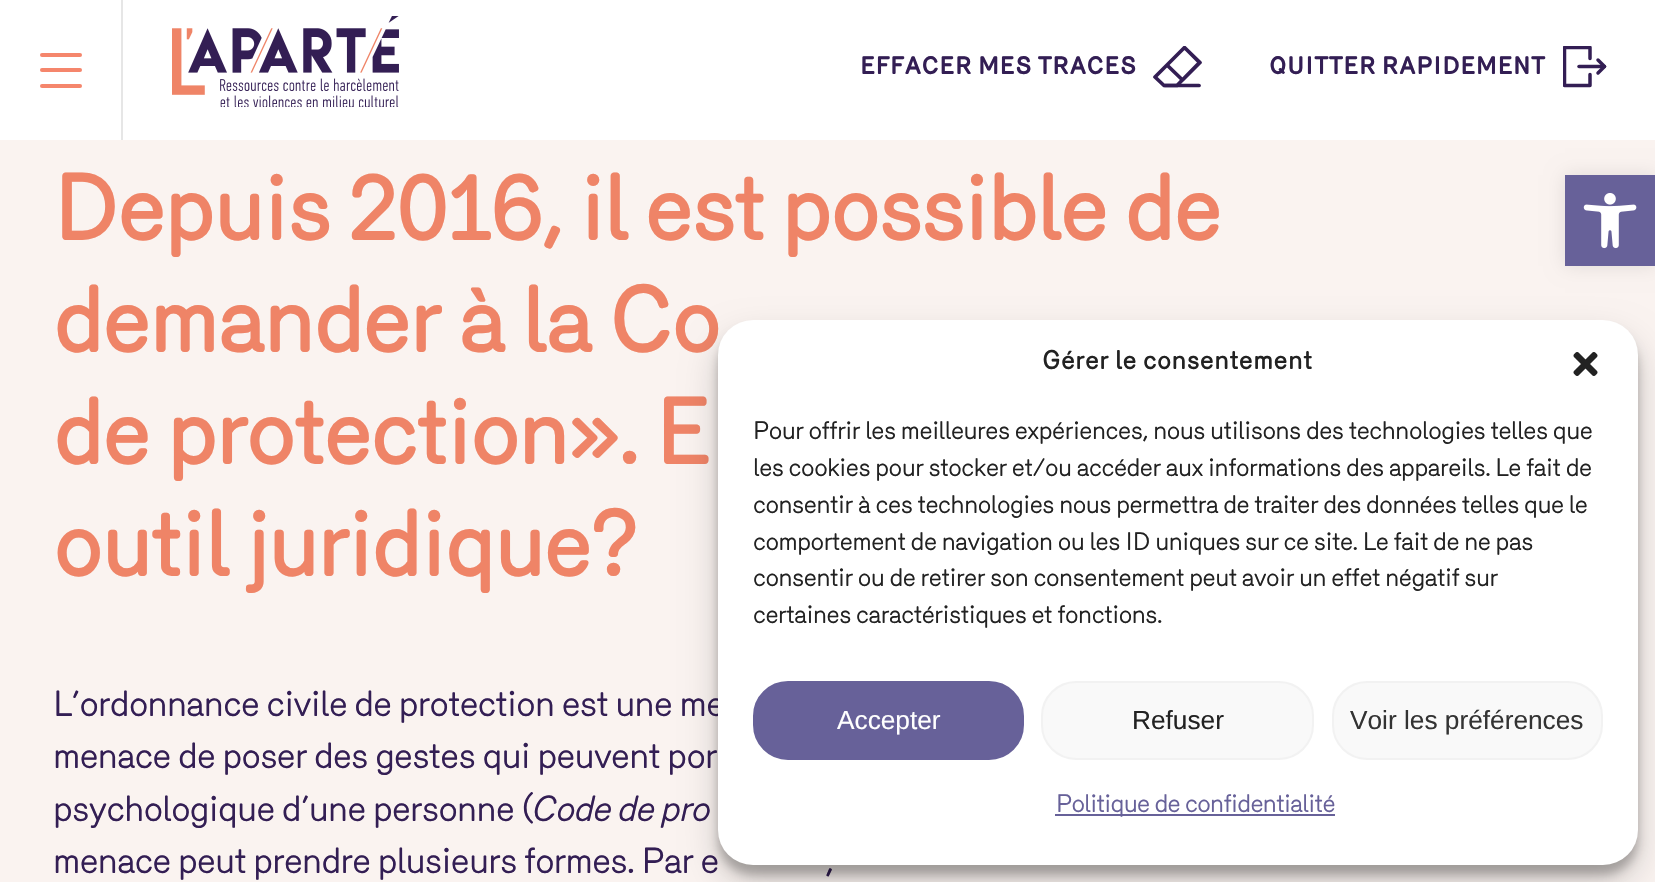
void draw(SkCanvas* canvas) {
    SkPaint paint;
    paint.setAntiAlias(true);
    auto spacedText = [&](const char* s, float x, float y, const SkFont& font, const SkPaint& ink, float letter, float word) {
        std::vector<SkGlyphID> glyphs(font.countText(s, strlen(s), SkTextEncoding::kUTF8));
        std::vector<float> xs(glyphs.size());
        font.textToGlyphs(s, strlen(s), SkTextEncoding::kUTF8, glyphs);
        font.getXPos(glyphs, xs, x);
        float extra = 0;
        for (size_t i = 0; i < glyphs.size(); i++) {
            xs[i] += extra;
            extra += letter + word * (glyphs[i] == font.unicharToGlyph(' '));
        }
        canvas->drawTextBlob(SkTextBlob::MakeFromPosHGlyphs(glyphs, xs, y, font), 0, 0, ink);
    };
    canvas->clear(0xFFFAF3F0);
    paint.setColor(0xFFFFFFFF);
    canvas->drawRect(SkRect::MakeXYWH(0, 0, 1655, 140), paint);
    paint.setColor(0xFFE6E6E6);
    canvas->drawRect(SkRect::MakeXYWH(121, 0, 2, 140), paint);
    paint.setColor(0xFFF5866C);
    canvas->drawRoundRect(SkRect::MakeXYWH(40, 53, 42, 4), 2, 2, paint);
    canvas->drawRoundRect(SkRect::MakeXYWH(40, 68, 42, 4), 2, 2, paint);
    canvas->drawRoundRect(SkRect::MakeXYWH(40, 84, 42, 4), 2, 2, paint);
    canvas->drawImageRect(SkImages::DeferredFromEncodedData(SkData::MakeFromFileName("img1.png")), SkRect::MakeXYWH(172, 16, 227, 91), SkSamplingOptions());
    SkFont font1(fontMgr->matchFamilyStyle("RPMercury", SkFontStyle::Bold()), 24.5f);
    font1.setSubpixel(true);
    paint.setColor(0xFF331E54);
    canvas->drawString("EFFACER MES TRACES", 860, 74, font1, paint);
    canvas->save();
    canvas->clipRect(SkRect::MakeXYWH(1153, 46, 49, 42));
    paint.setStyle(SkPaint::kStroke_Style);
    paint.setStrokeWidth(3.7f);
    paint.setStrokeCap(SkPaint::kRound_Cap);
    paint.setStrokeJoin(SkPaint::kRound_Join);
    canvas->drawPath(SkPathBuilder().moveTo(1155, 77).lineTo(1184.5f, 47.5f).lineTo(1199.5f, 62.5f).lineTo(1177, 85.5f).lineTo(1164, 85.5f).close().moveTo(1167, 65).lineTo(1184.5f, 47.5f).lineTo(1200, 62.5f).lineTo(1182.5f, 80).close().detach(), paint);
    canvas->restore();
    paint.setStrokeJoin(SkPaint::kMiter_Join);
    canvas->drawPath(SkPathBuilder().moveTo(1165, 85.5f).lineTo(1199, 85.5f).detach(), paint);
    paint.setStyle(SkPaint::kFill_Style);
    canvas->drawString("QUITTER RAPIDEMENT", 1269, 74, font1, paint);
    canvas->save();
    canvas->clipRect(SkRect::MakeXYWH(1563, 46, 44, 42));
    paint.setStyle(SkPaint::kStroke_Style);
    paint.setStrokeWidth(3.5f);
    paint.setStrokeJoin(SkPaint::kRound_Join);
    canvas->drawPath(SkPathBuilder().moveTo(1590, 74.5f).lineTo(1590, 85.5f).lineTo(1564.5f, 85.5f).lineTo(1564.5f, 47.5f).lineTo(1590, 47.5f).lineTo(1590, 58.5f).detach(), paint);
    canvas->restore();
    canvas->drawPath(SkPathBuilder().moveTo(1598, 60).lineTo(1604.5f, 66.5f).lineTo(1598, 73).detach(), paint);
    paint.setStrokeJoin(SkPaint::kMiter_Join);
    canvas->drawPath(SkPathBuilder().moveTo(1579, 66.5f).lineTo(1604.5f, 66.5f).detach(), paint);
    SkFont font2(fontMgr->matchFamilyStyle("RPMercury", SkFontStyle(500, SkFontStyle::kNormal_Width, SkFontStyle::kUpright_Slant)), 92.75f);
    font2.setSubpixel(true);
    paint.setStyle(SkPaint::kFill_Style);
    paint.setColor(0xFFEF8467);
    spacedText("Depuis 2016, il est possible de", 53, 240, font2, paint, -3.7f, 0);
    spacedText("demander à la Co", 53, 352, font2, paint, -3.7f, 0);
    spacedText("de protection». E", 53, 464, font2, paint, -3.7f, 0);
    spacedText("outil juridique?", 53, 576, font2, paint, -3.7f, 0);
    SkFont font3(fontMgr->matchFamilyStyle("RPMercury", SkFontStyle::Normal()), 35);
    font3.setSubpixel(true);
    paint.setColor(0xFF331E54);
    spacedText("L’ordonnance civile de protection est une me", 53, 716, font3, paint, -0.7f, 0);
    spacedText("menace de poser des gestes qui peuvent por", 53, 768, font3, paint, -0.7f, 0);
    spacedText("psychologique d’une personne (", 53, 821, font3, paint, -0.7f, 0);
    SkFont font4(fontMgr->matchFamilyStyle("RPMercury", SkFontStyle::Italic()), 35);
    font4.setSubpixel(true);
    spacedText("Code de pro", 533, 821, font4, paint, -0.7f, 0);
    spacedText("menace peut prendre plusieurs formes. Par e", 53, 873, font3, paint, -0.7f, 0);
    spacedText(",", 825, 873, font3, paint, -0.7f, 0);
    paint.setColor(0x1A000000);
    paint.setMaskFilter(SkMaskFilter::MakeBlur(kNormal_SkBlurStyle, 9));
    canvas->drawRect(SkRect::MakeXYWH(1565, 175, 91, 91), paint);
    paint.setMaskFilter(nullptr);
    paint.setColor(0xFF676199);
    canvas->drawRect(SkRect::MakeXYWH(1565, 175, 90, 91), paint);
    canvas->drawImageRect(SkImages::DeferredFromEncodedData(SkData::MakeFromFileName("img2.png")), SkRect::MakeXYWH(1583, 193, 54, 56), SkSamplingOptions());
    paint.setColor(0x3B000000);
    paint.setMaskFilter(SkMaskFilter::MakeBlur(kNormal_SkBlurStyle, 5));
    canvas->drawRoundRect(SkRect::MakeXYWH(718, 331, 920, 544), 35, 35, paint);
    paint.setMaskFilter(nullptr);
    paint.setColor(0x30000000);
    paint.setMaskFilter(SkMaskFilter::MakeBlur(kNormal_SkBlurStyle, 17.5f));
    canvas->drawRoundRect(SkRect::MakeXYWH(718, 338, 920, 544), 35, 35, paint);
    paint.setMaskFilter(nullptr);
    paint.setColor(0xFFFFFFFF);
    canvas->drawRoundRect(SkRect::MakeXYWH(718, 320, 920, 545), 35, 35, paint);
    SkFont font5(fontMgr->matchFamilyStyle("RPMercury", SkFontStyle(500, SkFontStyle::kNormal_Width, SkFontStyle::kUpright_Slant)), 26.25f);
    font5.setSubpixel(true);
    paint.setColor(0xFF222222);
    canvas->drawString("Gérer le consentement", 1042, 369, font5, paint);
    canvas->drawImageRect(SkImages::DeferredFromEncodedData(SkData::MakeFromFileName("img3.png")), SkRect::MakeXYWH(1573, 352, 25, 24), SkSamplingOptions());
    SkFont font6(fontMgr->matchFamilyStyle("RPMercury", SkFontStyle::Normal()), 24.5f);
    font6.setSubpixel(true);
    spacedText("Pour offrir les meilleures expériences, nous utilisons des technologies telles que", 753, 439, font6, paint, -0.5f, 0);
    spacedText("les cookies pour stocker et/ou accéder aux informations des appareils. Le fait de", 753, 476, font6, paint, -0.5f, 0);
    spacedText("consentir à ces technologies nous permettra de traiter des données telles que le", 753, 513, font6, paint, -0.5f, 0);
    spacedText("comportement de navigation ou les ID uniques sur ce site. Le fait de ne pas", 753, 550, font6, paint, -0.5f, 0);
    spacedText("consentir ou de retirer son consentement peut avoir un effet négatif sur", 753, 586, font6, paint, -0.5f, 0);
    spacedText("certaines caractéristiques et fonctions.", 753, 623, font6, paint, -0.5f, 0);
    paint.setColor(0xFF676199);
    canvas->drawRoundRect(SkRect::MakeXYWH(754, 682, 269, 77), 34, 34, paint);
    paint.setStyle(SkPaint::kStroke_Style);
    paint.setStrokeWidth(2);
    paint.setStrokeCap(SkPaint::kButt_Cap);
    canvas->drawRoundRect(SkRect::MakeXYWH(754, 682, 269, 77), 34, 34, paint);
    SkFont font7(fontMgr->matchFamilyStyle("Liberation Sans", SkFontStyle::Normal()), 26.25f);
    font7.setSubpixel(true);
    paint.setStyle(SkPaint::kFill_Style);
    paint.setColor(0xFFFFFFFF);
    canvas->drawString("Accepter", 837, 729, font7, paint);
    paint.setColor(0xFFF9F9F9);
    canvas->drawRoundRect(SkRect::MakeXYWH(1042, 682, 271, 77), 34, 34, paint);
    paint.setStyle(SkPaint::kStroke_Style);
    paint.setColor(0xFFF2F2F2);
    canvas->drawRoundRect(SkRect::MakeXYWH(1042, 682, 271, 77), 34, 34, paint);
    paint.setStyle(SkPaint::kFill_Style);
    paint.setColor(0xFF222222);
    canvas->drawString("Refuser", 1132, 729, font7, paint);
    paint.setColor(0xFFF9F9F9);
    canvas->drawRoundRect(SkRect::MakeXYWH(1333, 682, 269, 77), 34, 34, paint);
    paint.setStyle(SkPaint::kStroke_Style);
    paint.setColor(0xFFF2F2F2);
    canvas->drawRoundRect(SkRect::MakeXYWH(1333, 682, 269, 77), 34, 34, paint);
    paint.setStyle(SkPaint::kFill_Style);
    paint.setColor(0xFF333333);
    canvas->drawString("Voir les préférences", 1350, 729, font7, paint);
    paint.setColor(0xFF676199);
    canvas->drawRect(SkRect::MakeXYWH(1055, 814, 280, 2), paint);
    spacedText("Politique de confidentialité", 1056, 812, font6, paint, -0.7f, 0);
}
